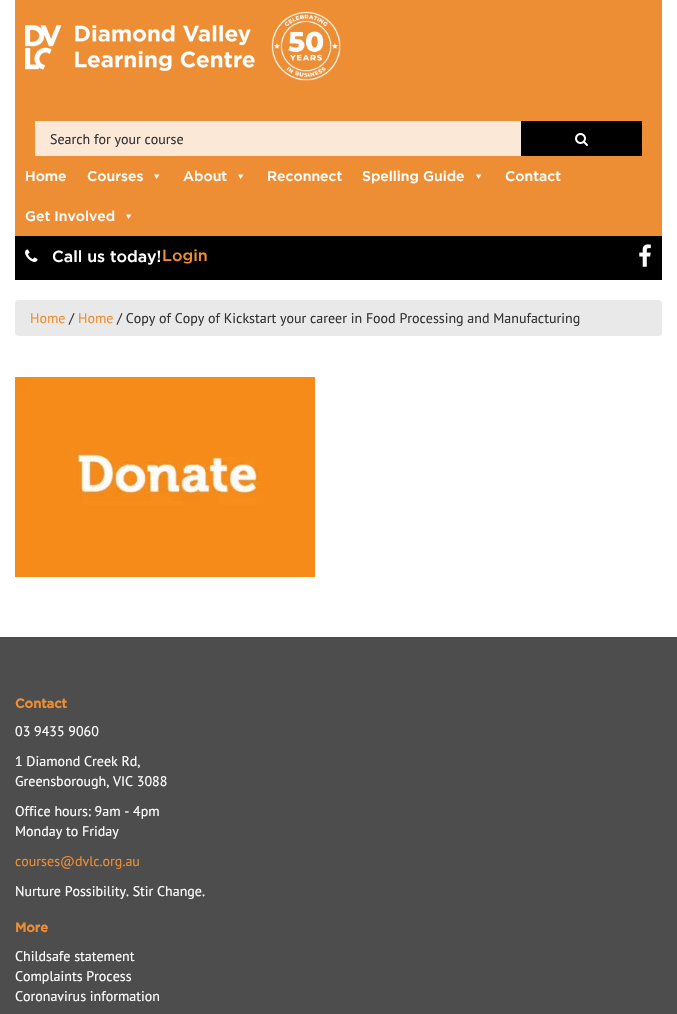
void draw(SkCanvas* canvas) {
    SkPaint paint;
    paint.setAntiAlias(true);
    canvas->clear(0xFFFFFFFF);
    paint.setColor(0xFFED8E35);
    canvas->drawRect(SkRect::MakeXYWH(15, 0, 647, 236), paint);
    canvas->drawImageRect(SkImages::DeferredFromEncodedData(SkData::MakeFromFileName("img1.png")), SkRect::MakeXYWH(25, 25, 230, 46), SkSamplingOptions());
    canvas->drawImageRect(SkImages::DeferredFromEncodedData(SkData::MakeFromFileName("img2.png")), SkRect::MakeXYWH(271, 11, 70, 70), SkSamplingOptions());
    paint.setColor(0xFFFBE8D7);
    canvas->drawRect(SkRect::MakeXYWH(35, 121, 486, 35), paint);
    SkFont font1(fontMgr->matchFamilyStyle("PT Sans", SkFontStyle::Normal()), 14);
    font1.setSubpixel(true);
    paint.setColor(0xFF333333);
    canvas->drawString("Search for your course", 50, 144, font1, paint);
    paint.setColor(0xFF000000);
    canvas->drawRect(SkRect::MakeXYWH(521, 121, 121, 35), paint);
    canvas->drawImageRect(SkImages::DeferredFromEncodedData(SkData::MakeFromFileName("img3.png")), SkRect::MakeXYWH(575, 133, 13, 13), SkSamplingOptions());
    SkFont font2(fontMgr->matchFamilyStyle("Gotham", SkFontStyle(500, SkFontStyle::kNormal_Width, SkFontStyle::kUpright_Slant)), 14);
    font2.setSubpixel(true);
    paint.setColor(0xFFFFFFFF);
    canvas->drawString("Home", 25, 181, font2, paint);
    canvas->drawString("Courses", 87, 181, font2, paint);
    canvas->drawPath(SkPathBuilder().moveTo(159.5f, 174.5f).lineTo(156.5f, 179).lineTo(154, 174.5f).close().detach(), paint);
    canvas->drawString("About", 183, 181, font2, paint);
    canvas->drawPath(SkPathBuilder().moveTo(243.5f, 174.5f).lineTo(240.5f, 179).lineTo(238, 174.5f).close().detach(), paint);
    canvas->drawString("Reconnect", 267, 181, font2, paint);
    canvas->drawString("Spelling Guide", 362, 181, font2, paint);
    canvas->drawPath(SkPathBuilder().moveTo(481.5f, 174.5f).lineTo(478.5f, 179).lineTo(476, 174.5f).close().detach(), paint);
    canvas->drawString("Contact", 505, 181, font2, paint);
    canvas->drawString("Get Involved", 25, 221, font2, paint);
    canvas->drawPath(SkPathBuilder().moveTo(131.5f, 214.5f).lineTo(128.5f, 219).lineTo(126, 214.5f).close().detach(), paint);
    paint.setColor(0xFF000000);
    canvas->drawRect(SkRect::MakeXYWH(15, 236, 647, 44), paint);
    canvas->drawImageRect(SkImages::DeferredFromEncodedData(SkData::MakeFromFileName("img4.png")), SkRect::MakeXYWH(25, 249, 13, 13), SkSamplingOptions());
    SkFont font3(fontMgr->matchFamilyStyle("Gotham", SkFontStyle(500, SkFontStyle::kNormal_Width, SkFontStyle::kUpright_Slant)), 16);
    font3.setSubpixel(true);
    paint.setColor(0xFFFFFFFF);
    canvas->drawString("Call us today!", 52, 262, font3, paint);
    paint.setColor(0xFFED8E35);
    canvas->drawString("Login", 162, 261, font3, paint);
    canvas->drawImageRect(SkImages::DeferredFromEncodedData(SkData::MakeFromFileName("img5.png")), SkRect::MakeXYWH(639, 244, 12, 23), SkSamplingOptions());
    paint.setColor(0xFFE9E9E9);
    canvas->drawRoundRect(SkRect::MakeXYWH(15, 300, 647, 36), 4, 4, paint);
    paint.setColor(0xFFED8E35);
    canvas->drawString("Home", 30, 323, font1, paint);
    paint.setColor(0xFF333333);
    canvas->drawString("/", 69, 323, font1, paint);
    paint.setColor(0xFFED8E35);
    canvas->drawString("Home", 78, 323, font1, paint);
    paint.setColor(0xFF333333);
    canvas->drawString("/ Copy of Copy of Kickstart your career in Food Processing and Manufacturing", 117, 323, font1, paint);
    canvas->drawImageRect(SkImages::DeferredFromEncodedData(SkData::MakeFromFileName("img6.png")), SkRect::MakeXYWH(15, 377, 300, 200), SkSamplingOptions());
    paint.setColor(0xFF4D4D4D);
    canvas->drawRect(SkRect::MakeXYWH(0, 637, 677, 377), paint);
    SkFont font4(fontMgr->matchFamilyStyle("Gotham", SkFontStyle::Bold()), 13);
    font4.setSubpixel(true);
    paint.setColor(0xFFED8E35);
    canvas->drawString("Contact", 15, 708, font4, paint);
    paint.setColor(0xFFFFFFFF);
    canvas->drawString("03 9435 9060", 15, 736, font1, paint);
    canvas->drawString("1 Diamond Creek Rd,", 15, 766, font1, paint);
    canvas->drawString("Greensborough, VIC 3088", 15, 786, font1, paint);
    canvas->drawString("Office hours: 9am - 4pm", 15, 816, font1, paint);
    canvas->drawString("Monday to Friday", 15, 836, font1, paint);
    paint.setColor(0xFFED8E35);
    canvas->drawString("courses@dvlc.org.au", 15, 866, font1, paint);
    paint.setColor(0xFFFFFFFF);
    canvas->drawString("Nurture Possibility. Stir Change.", 15, 896, font1, paint);
    paint.setColor(0xFFED8E35);
    canvas->drawString("More", 15, 932, font4, paint);
    paint.setColor(0xFFFFFFFF);
    canvas->drawString("Childsafe statement", 15, 961, font1, paint);
    canvas->drawString("Complaints Process", 15, 981, font1, paint);
    canvas->drawString("Coronavirus information", 15, 1001, font1, paint);
}
